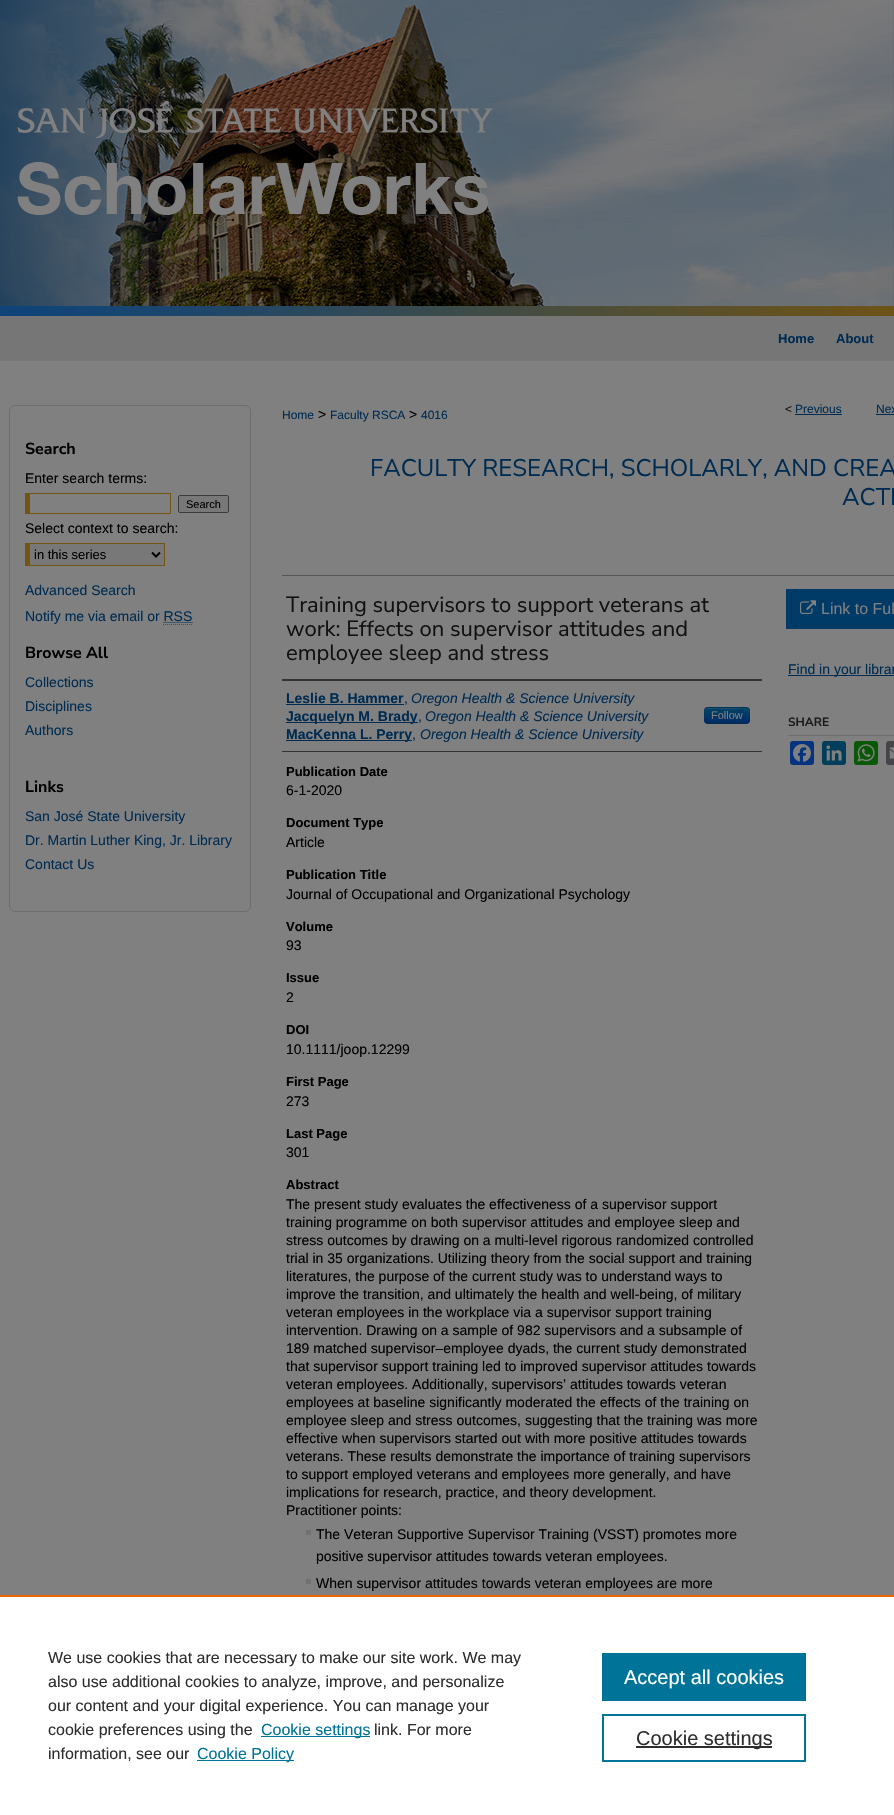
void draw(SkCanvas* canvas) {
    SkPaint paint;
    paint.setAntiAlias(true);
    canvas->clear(0xFF808080);
    canvas->drawImageRect(SkImages::DeferredFromEncodedData(SkData::MakeFromFileName("img1.png")), SkRect::MakeXYWH(0, 0, 894, 361), SkSamplingOptions());
    canvas->drawImageRect(SkImages::DeferredFromEncodedData(SkData::MakeFromFileName("img2.png")), SkRect::MakeXYWH(17, 100, 877, 216), SkSamplingOptions());
    SkFont font1(fontMgr->matchFamilyStyle("Liberation Sans", SkFontStyle::Bold()), 13);
    font1.setSubpixel(true);
    paint.setColor(0xFF002B51);
    canvas->drawString("Home", 778, 343, font1, paint);
    canvas->drawString("About", 836, 343, font1, paint);
    paint.setStyle(SkPaint::kStroke_Style);
    paint.setStrokeWidth(1);
    paint.setPathEffect(SkDashPathEffect::Make({{1, 1}}, 0));
    canvas->drawPath(SkPathBuilder().moveTo(163.5f, 622.5f).lineTo(192.5f, 622.5f).detach(), paint);
    paint.setPathEffect(nullptr);
    paint.setColor(0xFF4D4D4D);
    paint.setPathEffect(SkDashPathEffect::Make({{1, 1}}, 0));
    canvas->drawPath(SkPathBuilder().moveTo(163, 624.5f).lineTo(192, 624.5f).detach(), paint);
    paint.setPathEffect(nullptr);
    paint.setColor(0xFF6D6D6D);
    canvas->drawRoundRect(SkRect::MakeXYWH(9.5f, 405.5f, 241, 506), 5.5f, 5.5f, paint);
    SkFont font2(fontMgr->matchFamilyStyle("Nunito Sans", SkFontStyle::Bold()), 16);
    font2.setSubpixel(true);
    paint.setStyle(SkPaint::kFill_Style);
    paint.setColor(0xFF000000);
    canvas->drawString("Search", 25, 454, font2, paint);
    SkFont font3(fontMgr->matchFamilyStyle("Liberation Sans", SkFontStyle::Normal()), 14);
    font3.setSubpixel(true);
    canvas->drawString("Enter search terms:", 25, 483, font3, paint);
    paint.setColor(0xFF735412);
    canvas->drawRect(SkRect::MakeXYWH(25, 493, 146, 1), paint);
    canvas->drawRect(SkRect::MakeXYWH(170, 493, 1, 21), paint);
    canvas->drawRect(SkRect::MakeXYWH(25, 513, 146, 1), paint);
    canvas->drawRect(SkRect::MakeXYWH(25, 493, 5, 21), paint);
    paint.setColor(0xFF787878);
    canvas->drawRoundRect(SkRect::MakeXYWH(178.5f, 495.5f, 50, 17), 1.5f, 1.5f, paint);
    paint.setStyle(SkPaint::kStroke_Style);
    paint.setColor(0xFF3B3B3B);
    canvas->drawRoundRect(SkRect::MakeXYWH(178.5f, 495.5f, 50, 17), 1.5f, 1.5f, paint);
    SkFont font4(fontMgr->matchFamilyStyle("Liberation Sans", SkFontStyle::Normal()), 11);
    font4.setSubpixel(true);
    paint.setStyle(SkPaint::kFill_Style);
    paint.setColor(0xFF000000);
    canvas->drawString("Search", 186, 508, font4, paint);
    canvas->drawString("Select context to search:", 25, 533, font3, paint);
    paint.setColor(0xFF787878);
    canvas->drawRect(SkRect::MakeXYWH(30, 544, 134, 21), paint);
    paint.setColor(0xFF735412);
    canvas->drawRect(SkRect::MakeXYWH(25, 543, 140, 1), paint);
    canvas->drawRect(SkRect::MakeXYWH(164, 543, 1, 23), paint);
    canvas->drawRect(SkRect::MakeXYWH(25, 565, 140, 1), paint);
    canvas->drawRect(SkRect::MakeXYWH(25, 543, 5, 23), paint);
    paint.setStyle(SkPaint::kStroke_Style);
    paint.setStrokeWidth(2);
    paint.setColor(0xFF000000);
    canvas->drawPath(SkPathBuilder().moveTo(152, 552.5f).lineTo(156, 556.5f).lineTo(160, 552.5f).detach(), paint);
    SkFont font5(fontMgr->matchFamilyStyle("Liberation Sans", SkFontStyle::Normal()), 13);
    font5.setSubpixel(true);
    paint.setStyle(SkPaint::kFill_Style);
    canvas->drawString("in this series", 34, 559, font5, paint);
    paint.setColor(0xFF002B51);
    canvas->drawString("Advanced Search", 25, 595, font3, paint);
    canvas->drawString("Notify me via email or RSS", 25, 621, font3, paint);
    paint.setColor(0xFF000000);
    canvas->drawString("Browse All", 25, 658, font2, paint);
    paint.setColor(0xFF002B51);
    canvas->drawString("Collections", 25, 687, font3, paint);
    canvas->drawString("Disciplines", 25, 711, font3, paint);
    canvas->drawString("Authors", 25, 735, font3, paint);
    paint.setColor(0xFF000000);
    canvas->drawString("Links", 25, 792, font2, paint);
    paint.setColor(0xFF002B51);
    canvas->drawString("San José State University", 25, 821, font3, paint);
    canvas->drawString("Dr. Martin Luther King, Jr. Library", 25, 845, font3, paint);
    canvas->drawString("Contact Us", 25, 869, font3, paint);
    SkFont font6(fontMgr->matchFamilyStyle("Liberation Sans", SkFontStyle::Normal()), 12);
    font6.setSubpixel(true);
    paint.setColor(0xFF111111);
    canvas->drawString("<", 785, 413, font6, paint);
    paint.setColor(0xFF002B51);
    canvas->drawString("Previous", 795, 413, font6, paint);
    canvas->drawRect(SkRect::MakeXYWH(795, 414, 47, 1), paint);
    canvas->drawString("Nex", 876, 413, font6, paint);
    canvas->drawRect(SkRect::MakeXYWH(876, 414, 18, 1), paint);
    canvas->drawString("Home", 282, 419, font6, paint);
    paint.setColor(0xFF000000);
    canvas->drawString(">", 318, 419, font3, paint);
    paint.setColor(0xFF002B51);
    canvas->drawString("Faculty RSCA", 330, 419, font6, paint);
    paint.setColor(0xFF000000);
    canvas->drawString(">", 409, 419, font3, paint);
    paint.setColor(0xFF002B51);
    canvas->drawString("4016", 421, 419, font6, paint);
    SkFont font7(fontMgr->matchFamilyStyle("Nunito Sans", SkFontStyle::Normal()), 24);
    font7.setSubpixel(true);
    canvas->drawString("FACULTY RESEARCH, SCHOLARLY, AND CREA", 370, 476, font7, paint);
    canvas->drawString("ACTI", 842, 505, font7, paint);
    paint.setColor(0xFF555555);
    canvas->drawRect(SkRect::MakeXYWH(282, 575, 612, 1), paint);
    SkFont font8(fontMgr->matchFamilyStyle("Nunito Sans", SkFontStyle::Normal()), 22);
    font8.setSubpixel(true);
    paint.setColor(0xFF111111);
    canvas->drawString("Training supervisors to support veterans at", 286, 612, font8, paint);
    canvas->drawString("work: Effects on supervisor attitudes and", 286, 636, font8, paint);
    canvas->drawString("employee sleep and stress", 286, 660, font8, paint);
    paint.setColor(0xFF333333);
    canvas->drawRect(SkRect::MakeXYWH(282, 679, 480, 2), paint);
    canvas->drawRect(SkRect::MakeXYWH(282, 751, 480, 1), paint);
    SkFont font9(fontMgr->matchFamilyStyle("Liberation Sans", SkFontStyle::Bold()), 14);
    font9.setSubpixel(true);
    paint.setColor(0xFF002B51);
    canvas->drawString("Leslie B. Hammer", 286, 703, font9, paint);
    canvas->drawRect(SkRect::MakeXYWH(286, 704, 118, 1), paint);
    canvas->drawString(",", 404, 703, font3, paint);
    SkFont font10(fontMgr->matchFamilyStyle("Liberation Sans", SkFontStyle::Italic()), 14);
    font10.setSubpixel(true);
    canvas->drawString("Oregon Health & Science University", 411, 703, font10, paint);
    canvas->drawRect(SkRect::MakeXYWH(286, 722, 132, 1), paint);
    canvas->drawString("Jacquelyn M. Brady", 286, 721, font9, paint);
    canvas->drawString(",", 418, 721, font3, paint);
    canvas->drawString("Oregon Health & Science University", 425, 721, font10, paint);
    paint.setColor(0xFF003A66);
    canvas->drawRoundRect(SkRect::MakeXYWH(704, 707, 46, 17), 4, 4, paint);
    canvas->save();
    canvas->clipPath(SkPathBuilder().moveTo(708, 707).lineTo(746, 707).cubicTo(748, 707, 750, 709, 750, 711).lineTo(750, 720).cubicTo(750, 722, 748, 724, 746, 724).lineTo(708, 724).cubicTo(706, 724, 704, 722, 704, 720).lineTo(704, 711).cubicTo(704, 709, 706, 707, 708, 707).close().detach(), true);
    {
        const SkColor colors[] = {0xFF004466, 0xFF002B66};
        const float stops[] = {0, 1};
        const SkPoint ends[] = {{727, 708}, {727, 723}};
        paint.setShader(SkGradientShader::MakeLinear(ends, colors, stops, 2, SkTileMode::kClamp));
        paint.setAlpha(255);
    }
    canvas->drawRect(SkRect::MakeXYWH(704, 708, 46, 15), paint);
    canvas->restore();
    paint.setShader(nullptr);
    paint.setColor(0x33808080);
    canvas->drawPath(SkPathBuilder().moveTo(708, 709).lineTo(733, 709).cubicTo(747, 709, 749, 705, 749, 720).cubicTo(749, 709, 752, 708, 740, 708).lineTo(714, 708).cubicTo(707, 708, 705, 707, 705, 714).lineTo(705, 721).cubicTo(705, 718, 704, 709, 708, 709).close().detach(), paint);
    paint.setStyle(SkPaint::kStroke_Style);
    paint.setStrokeWidth(1);
    paint.setColor(0x40000000);
    canvas->drawPath(SkPathBuilder().moveTo(748.5f, 722.5f).cubicTo(748, 723, 747, 723.5f, 746, 723.5f).lineTo(708, 723.5f).cubicTo(707, 723.5f, 706, 723, 705.5f, 722.5f).detach(), paint);
    paint.setColor(0x1A000000);
    canvas->drawPath(SkPathBuilder().moveTo(705.5f, 722.5f).cubicTo(704, 720.5f, 704.5f, 717.5f, 704.5f, 715.5f).cubicTo(704.5f, 706.5f, 705, 707.5f, 714.5f, 707.5f).lineTo(739.5f, 707.5f).cubicTo(749, 707.5f, 749.5f, 706.5f, 749.5f, 715.5f).cubicTo(749.5f, 717.5f, 750, 720.5f, 748.5f, 722.5f).detach(), paint);
    paint.setStyle(SkPaint::kFill_Style);
    paint.setColor(0xFF808080);
    canvas->drawString("Follow", 711, 719, font4, paint);
    paint.setColor(0xFF002B51);
    canvas->drawRect(SkRect::MakeXYWH(286, 740, 126, 1), paint);
    canvas->drawString("MacKenna L. Perry", 286, 739, font9, paint);
    canvas->drawString(",", 412, 739, font3, paint);
    canvas->drawString("Oregon Health & Science University", 420, 739, font10, paint);
    paint.setColor(0xFF000000);
    canvas->drawString("Publication Date", 286, 776, font1, paint);
    canvas->drawString("6-1-2020", 286, 795, font3, paint);
    canvas->drawString("Document Type", 286, 827, font1, paint);
    canvas->drawString("Article", 286, 847, font3, paint);
    canvas->drawString("Publication Title", 286, 879, font1, paint);
    canvas->drawString("Journal of Occupational and Organizational Psychology", 286, 899, font3, paint);
    canvas->drawString("Volume", 286, 931, font1, paint);
    canvas->drawString("93", 286, 950, font3, paint);
    canvas->drawString("Issue", 286, 982, font1, paint);
    canvas->drawString("2", 286, 1002, font3, paint);
    canvas->drawString("DOI", 286, 1034, font1, paint);
    canvas->drawString("10.1111/joop.12299", 286, 1054, font3, paint);
    canvas->drawString("First Page", 286, 1086, font1, paint);
    canvas->drawString("273", 286, 1106, font3, paint);
    canvas->drawString("Last Page", 286, 1138, font1, paint);
    canvas->drawString("301", 286, 1157, font3, paint);
    canvas->drawString("Abstract", 286, 1189, font1, paint);
    canvas->drawString("The present study evaluates the effectiveness of a supervisor support", 286, 1209, font3, paint);
    canvas->drawString("training programme on both supervisor attitudes and employee sleep and", 286, 1227, font3, paint);
    canvas->drawString("stress outcomes by drawing on a multi-level rigorous randomized controlled", 286, 1245, font3, paint);
    canvas->drawString("trial in 35 organizations. Utilizing theory from the social support and training", 286, 1263, font3, paint);
    canvas->drawString("literatures, the purpose of the current study was to understand ways to", 286, 1281, font3, paint);
    canvas->drawString("improve the transition, and ultimately the health and well-being, of military", 286, 1299, font3, paint);
    canvas->drawString("veteran employees in the workplace via a supervisor support training", 286, 1317, font3, paint);
    canvas->drawString("intervention. Drawing on a sample of 982 supervisors and a subsample of", 286, 1335, font3, paint);
    canvas->drawString("189 matched supervisor–employee dyads, the current study demonstrated", 286, 1353, font3, paint);
    canvas->drawString("that supervisor support training led to improved supervisor attitudes towards", 286, 1371, font3, paint);
    canvas->drawString("veteran employees. Additionally, supervisors’ attitudes towards veteran", 286, 1389, font3, paint);
    canvas->drawString("employees at baseline significantly moderated the effects of the training on", 286, 1407, font3, paint);
    canvas->drawString("employee sleep and stress outcomes, suggesting that the training was more", 286, 1425, font3, paint);
    canvas->drawString("effective when supervisors started out with more positive attitudes towards", 286, 1443, font3, paint);
    canvas->drawString("veterans. These results demonstrate the importance of training supervisors", 286, 1461, font3, paint);
    canvas->drawString("to support employed veterans and employees more generally, and have", 286, 1479, font3, paint);
    canvas->drawString("implications for research, practice, and theory development.", 286, 1497, font3, paint);
    canvas->drawString("Practitioner points:", 286, 1515, font3, paint);
    paint.setColor(0xFF717171);
    canvas->drawRect(SkRect::MakeXYWH(306, 1530, 5, 5), paint);
    paint.setColor(0xFF000000);
    canvas->drawString("The Veteran Supportive Supervisor Training (VSST) promotes more", 316, 1539, font3, paint);
    canvas->drawString("positive supervisor attitudes towards veteran employees.", 316, 1561, font3, paint);
    paint.setColor(0xFF717171);
    canvas->drawRect(SkRect::MakeXYWH(306, 1579, 5, 5), paint);
    paint.setColor(0xFF000000);
    canvas->drawString("When supervisor attitudes towards veteran employees are more", 316, 1588, font3, paint);
    paint.setColor(0xFF003A66);
    canvas->drawRect(SkRect::MakeXYWH(786, 589, 108, 40), paint);
    canvas->drawImageRect(SkImages::DeferredFromEncodedData(SkData::MakeFromFileName("img3.png")), SkRect::MakeXYWH(800, 600, 16, 14), SkSamplingOptions());
    SkFont font11(fontMgr->matchFamilyStyle("Liberation Sans", SkFontStyle::Normal()), 16);
    font11.setSubpixel(true);
    paint.setColor(0xFF808080);
    canvas->drawString("Link to Ful", 821, 614, font11, paint);
    paint.setColor(0xFF002B51);
    canvas->drawRect(SkRect::MakeXYWH(788, 675, 106, 1), paint);
    canvas->drawString("Find in your librar", 788, 674, font3, paint);
    paint.setColor(0xFF6F6F6F);
    canvas->drawRect(SkRect::MakeXYWH(788, 735, 106, 1), paint);
    SkFont font12(fontMgr->matchFamilyStyle("Nunito Sans", SkFontStyle::Bold()), 12);
    font12.setSubpixel(true);
    paint.setColor(0xFF1A1A1A);
    canvas->drawString("SHARE", 788, 726, font12, paint);
    paint.setColor(0xFF043380);
    canvas->drawRoundRect(SkRect::MakeXYWH(790, 741, 24, 24), 3, 3, paint);
    canvas->drawImageRect(SkImages::DeferredFromEncodedData(SkData::MakeFromFileName("img4.png")), SkRect::MakeXYWH(793, 744, 18, 18), SkSamplingOptions());
    paint.setColor(0xFF003E5B);
    canvas->drawRoundRect(SkRect::MakeXYWH(822, 741, 24, 24), 3, 3, paint);
    canvas->drawImageRect(SkImages::DeferredFromEncodedData(SkData::MakeFromFileName("img5.png")), SkRect::MakeXYWH(826, 745, 16, 16), SkSamplingOptions());
    paint.setColor(0xFF095805);
    canvas->drawRoundRect(SkRect::MakeXYWH(854, 741, 24, 24), 3, 3, paint);
    canvas->drawImageRect(SkImages::DeferredFromEncodedData(SkData::MakeFromFileName("img6.png")), SkRect::MakeXYWH(857, 744, 18, 18), SkSamplingOptions());
    paint.setColor(0xFF444548);
    canvas->drawRoundRect(SkRect::MakeXYWH(886, 741, 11, 24), 3, 3, paint);
    canvas->drawImageRect(SkImages::DeferredFromEncodedData(SkData::MakeFromFileName("img7.png")), SkRect::MakeXYWH(889, 747, 5, 12), SkSamplingOptions());
    paint.setColor(0xFFFFFFFF);
    canvas->drawRect(SkRect::MakeXYWH(0, 1597, 894, 218), paint);
    paint.setColor(0xFFEB6500);
    canvas->drawRect(SkRect::MakeXYWH(0, 1595, 894, 2), paint);
    paint.setColor(0xFF2E2E2E);
    canvas->drawString("We use cookies that are necessary to make our site work. We may", 48, 1663, font11, paint);
    canvas->drawString("also use additional cookies to analyze, improve, and personalize", 48, 1687, font11, paint);
    canvas->drawString("our content and your digital experience. You can manage your", 48, 1711, font11, paint);
    canvas->drawString("cookie preferences using the", 48, 1735, font11, paint);
    paint.setColor(0xFF007398);
    canvas->drawRect(SkRect::MakeXYWH(261, 1736, 109, 1), paint);
    canvas->drawString("Cookie settings", 261, 1735, font11, paint);
    paint.setColor(0xFF2E2E2E);
    canvas->drawString("link. For more", 374, 1735, font11, paint);
    canvas->drawString("information, see our", 48, 1759, font11, paint);
    paint.setColor(0xFF007398);
    canvas->drawRect(SkRect::MakeXYWH(197, 1760, 97, 1), paint);
    canvas->drawString("Cookie Policy", 197, 1759, font11, paint);
    canvas->drawRect(SkRect::MakeXYWH(602, 1653, 204, 48), paint);
    SkFont font13(fontMgr->matchFamilyStyle("Liberation Sans", SkFontStyle::Normal()), 20);
    font13.setSubpixel(true);
    paint.setColor(0xFFFFFFFF);
    canvas->drawString("Accept all cookies", 624, 1684, font13, paint);
    paint.setStyle(SkPaint::kStroke_Style);
    paint.setStrokeWidth(2);
    paint.setColor(0xFF007398);
    canvas->drawRect(SkRect::MakeXYWH(603, 1715, 202, 46), paint);
    paint.setStyle(SkPaint::kFill_Style);
    paint.setColor(0xFF2E2E2E);
    canvas->drawRect(SkRect::MakeXYWH(636, 1746, 136, 2), paint);
    canvas->drawString("Cookie settings", 636, 1745, font13, paint);
}
